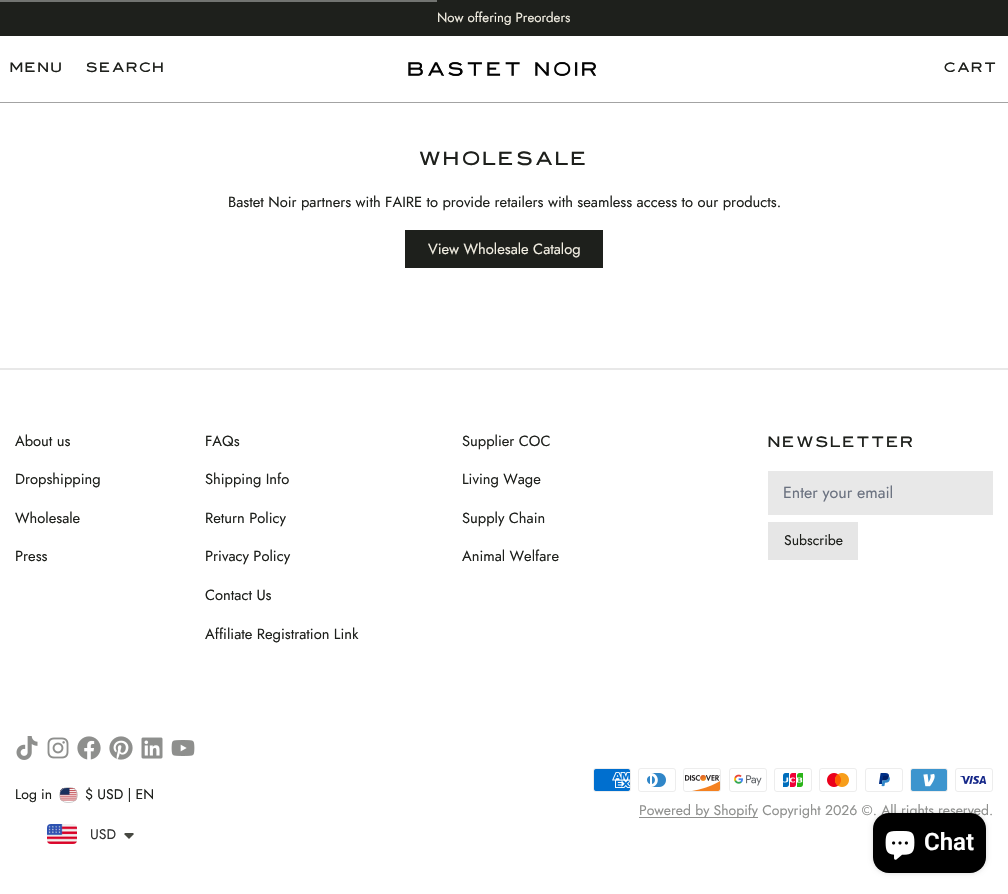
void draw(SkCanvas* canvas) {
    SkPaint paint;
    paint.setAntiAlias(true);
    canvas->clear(0xFFFFFFFF);
    paint.setColor(0xFF1E201C);
    canvas->drawRect(SkRect::MakeXYWH(0, 0, 1008, 36), paint);
    paint.setColor(0xFF727471);
    canvas->drawRect(SkRect::MakeXYWH(0, 0, 437, 2), paint);
    SkFont font1(fontMgr->matchFamilyStyle("Jost", SkFontStyle::Normal()), 13.25f);
    font1.setSubpixel(true);
    paint.setColor(0xFFF2EEE2);
    canvas->drawString("Now offering Preorders", 437, 22, font1, paint);
    paint.setColor(0xFFA3A3A3);
    canvas->drawRect(SkRect::MakeXYWH(0, 102, 1008, 1), paint);
    SkFont font2(fontMgr->matchFamilyStyle("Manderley", SkFontStyle::Normal()), 14.7f);
    font2.setSubpixel(true);
    paint.setColor(0xFF1E201C);
    canvas->drawString("Menu", 10, 72, font2, paint);
    canvas->drawString("Search", 86, 72, font2, paint);
    canvas->drawImageRect(SkImages::DeferredFromEncodedData(SkData::MakeFromFileName("img1.png")), SkRect::MakeXYWH(408, 62, 188, 14), SkSamplingOptions());
    canvas->drawString("Cart", 944, 72, font2, paint);
    paint.setColor(0xFFE8E8E8);
    canvas->drawRect(SkRect::MakeXYWH(0, 368, 1008, 2), paint);
    SkFont font3(fontMgr->matchFamilyStyle("Manderley", SkFontStyle::Normal()), 20.75f);
    font3.setSubpixel(true);
    paint.setColor(0xFF1E201C);
    canvas->drawString("Wholesale", 419, 165, font3, paint);
    SkFont font4(fontMgr->matchFamilyStyle("Jost", SkFontStyle::Normal()), 14.7f);
    font4.setSubpixel(true);
    canvas->drawString("Bastet Noir partners with FAIRE to provide retailers with seamless access to our products.", 228, 207, font4, paint);
    canvas->drawRect(SkRect::MakeXYWH(405, 230, 198, 38), paint);
    paint.setColor(0xFFF2EEE2);
    canvas->drawString("View Wholesale Catalog", 428, 254, font4, paint);
    paint.setColor(0xFF1E201C);
    canvas->drawString("About us", 15, 446, font4, paint);
    canvas->drawString("Dropshipping", 15, 484, font4, paint);
    canvas->drawString("Wholesale", 15, 523, font4, paint);
    canvas->drawString("Press", 15, 561, font4, paint);
    canvas->drawString("FAQs", 205, 446, font4, paint);
    canvas->drawString("Shipping Info", 205, 484, font4, paint);
    canvas->drawString("Return Policy", 205, 523, font4, paint);
    canvas->drawString("Privacy Policy", 205, 561, font4, paint);
    canvas->drawString("Contact Us", 205, 600, font4, paint);
    canvas->drawString("Affiliate Registration Link", 205, 639, font4, paint);
    canvas->drawString("Supplier COC", 462, 446, font4, paint);
    canvas->drawString("Living Wage", 462, 484, font4, paint);
    canvas->drawString("Supply Chain", 462, 523, font4, paint);
    canvas->drawString("Animal Welfare", 462, 561, font4, paint);
    SkFont font5(fontMgr->matchFamilyStyle("Manderley", SkFontStyle::Normal()), 16.25f);
    font5.setSubpixel(true);
    canvas->drawString("Newsletter", 768, 447, font5, paint);
    paint.setColor(0xFFE8E8E8);
    canvas->drawRect(SkRect::MakeXYWH(768, 471, 225, 44), paint);
    SkFont font6(fontMgr->matchFamilyStyle("Jost", SkFontStyle::Normal()), 16);
    font6.setSubpixel(true);
    paint.setColor(0xFF6B7280);
    canvas->drawString("Enter your email", 783, 498, font6, paint);
    paint.setColor(0xFFE6E6E6);
    canvas->drawRect(SkRect::MakeXYWH(768, 522, 90, 38), paint);
    SkFont font7(fontMgr->matchFamilyStyle("Jost", SkFontStyle::Normal()), 14);
    font7.setSubpixel(true);
    paint.setColor(0xFF1E201C);
    canvas->drawString("Subscribe", 784, 545, font7, paint);
    canvas->drawImageRect(SkImages::DeferredFromEncodedData(SkData::MakeFromFileName("img2.png")), SkRect::MakeXYWH(16, 736, 22, 24), SkSamplingOptions());
    canvas->drawImageRect(SkImages::DeferredFromEncodedData(SkData::MakeFromFileName("img3.png")), SkRect::MakeXYWH(47, 737, 22, 22), SkSamplingOptions());
    canvas->drawImageRect(SkImages::DeferredFromEncodedData(SkData::MakeFromFileName("img4.png")), SkRect::MakeXYWH(77, 736, 24, 24), SkSamplingOptions());
    canvas->drawImageRect(SkImages::DeferredFromEncodedData(SkData::MakeFromFileName("img5.png")), SkRect::MakeXYWH(109, 736, 24, 24), SkSamplingOptions());
    canvas->drawImageRect(SkImages::DeferredFromEncodedData(SkData::MakeFromFileName("img6.png")), SkRect::MakeXYWH(141, 737, 22, 22), SkSamplingOptions());
    canvas->drawImageRect(SkImages::DeferredFromEncodedData(SkData::MakeFromFileName("img7.png")), SkRect::MakeXYWH(171, 740, 24, 16), SkSamplingOptions());
    canvas->drawString("Log in", 15, 799, font7, paint);
    canvas->drawImageRect(SkImages::DeferredFromEncodedData(SkData::MakeFromFileName("img8.png")), SkRect::MakeXYWH(60, 788, 17, 13), SkSamplingOptions());
    paint.setStyle(SkPaint::kStroke_Style);
    paint.setStrokeWidth(1);
    paint.setColor(0x99B3B3B3);
    canvas->drawRoundRect(SkRect::MakeXYWH(59.5f, 787.5f, 18, 15), 7.5f, 7.5f, paint);
    paint.setStyle(SkPaint::kFill_Style);
    paint.setColor(0xFF1E201C);
    canvas->drawString("$ USD | EN", 85, 799, font7, paint);
    canvas->drawImageRect(SkImages::DeferredFromEncodedData(SkData::MakeFromFileName("img9.png")), SkRect::MakeXYWH(593, 768, 38, 24), SkSamplingOptions());
    canvas->drawImageRect(SkImages::DeferredFromEncodedData(SkData::MakeFromFileName("img10.png")), SkRect::MakeXYWH(638, 768, 38, 24), SkSamplingOptions());
    canvas->drawImageRect(SkImages::DeferredFromEncodedData(SkData::MakeFromFileName("img11.png")), SkRect::MakeXYWH(683, 768, 38, 24), SkSamplingOptions());
    canvas->drawImageRect(SkImages::DeferredFromEncodedData(SkData::MakeFromFileName("img12.png")), SkRect::MakeXYWH(729, 768, 38, 24), SkSamplingOptions());
    canvas->drawImageRect(SkImages::DeferredFromEncodedData(SkData::MakeFromFileName("img13.png")), SkRect::MakeXYWH(774, 768, 38, 24), SkSamplingOptions());
    canvas->drawImageRect(SkImages::DeferredFromEncodedData(SkData::MakeFromFileName("img14.png")), SkRect::MakeXYWH(819, 768, 38, 24), SkSamplingOptions());
    canvas->drawImageRect(SkImages::DeferredFromEncodedData(SkData::MakeFromFileName("img15.png")), SkRect::MakeXYWH(865, 768, 38, 24), SkSamplingOptions());
    canvas->drawImageRect(SkImages::DeferredFromEncodedData(SkData::MakeFromFileName("img16.png")), SkRect::MakeXYWH(910, 768, 38, 24), SkSamplingOptions());
    canvas->drawImageRect(SkImages::DeferredFromEncodedData(SkData::MakeFromFileName("img17.png")), SkRect::MakeXYWH(955, 768, 38, 24), SkSamplingOptions());
    paint.setColor(0xFF8F908E);
    canvas->drawRect(SkRect::MakeXYWH(639, 817, 119, 1), paint);
    canvas->drawString("Powered by Shopify Copyright 2026 ©. All rights reserved.", 639, 815, font7, paint);
    canvas->drawImageRect(SkImages::DeferredFromEncodedData(SkData::MakeFromFileName("img18.png")), SkRect::MakeXYWH(47, 824, 30, 20), SkSamplingOptions());
    paint.setColor(0xFF333333);
    canvas->drawString("USD", 90, 839, font7, paint);
    paint.setColor(0xFF474942);
    canvas->drawPath(SkPathBuilder().moveTo(126, 833).cubicTo(125, 833, 124.5f, 833.5f, 124, 834).lineTo(129, 839).lineTo(134, 834).lineTo(133, 833).close().detach(), paint);
    paint.setColor(0x26000000);
    paint.setMaskFilter(SkMaskFilter::MakeBlur(kNormal_SkBlurStyle, 2.5f));
    canvas->drawRoundRect(SkRect::MakeXYWH(873, 813, 113, 60), 16, 16, paint);
    paint.setMaskFilter(nullptr);
    paint.setColor(0xFF000000);
    canvas->drawRoundRect(SkRect::MakeXYWH(873, 813, 113, 60), 16, 16, paint);
    canvas->drawImageRect(SkImages::DeferredFromEncodedData(SkData::MakeFromFileName("img19.png")), SkRect::MakeXYWH(885, 831, 30, 29), SkSamplingOptions());
    SkFont font8(fontMgr->matchFamilyStyle("Roboto", SkFontStyle(600, SkFontStyle::kNormal_Width, SkFontStyle::kUpright_Slant)), 24);
    font8.setSubpixel(true);
    paint.setColor(0xFFFFFFFF);
    canvas->drawString("Chat", 924, 850, font8, paint);
}
